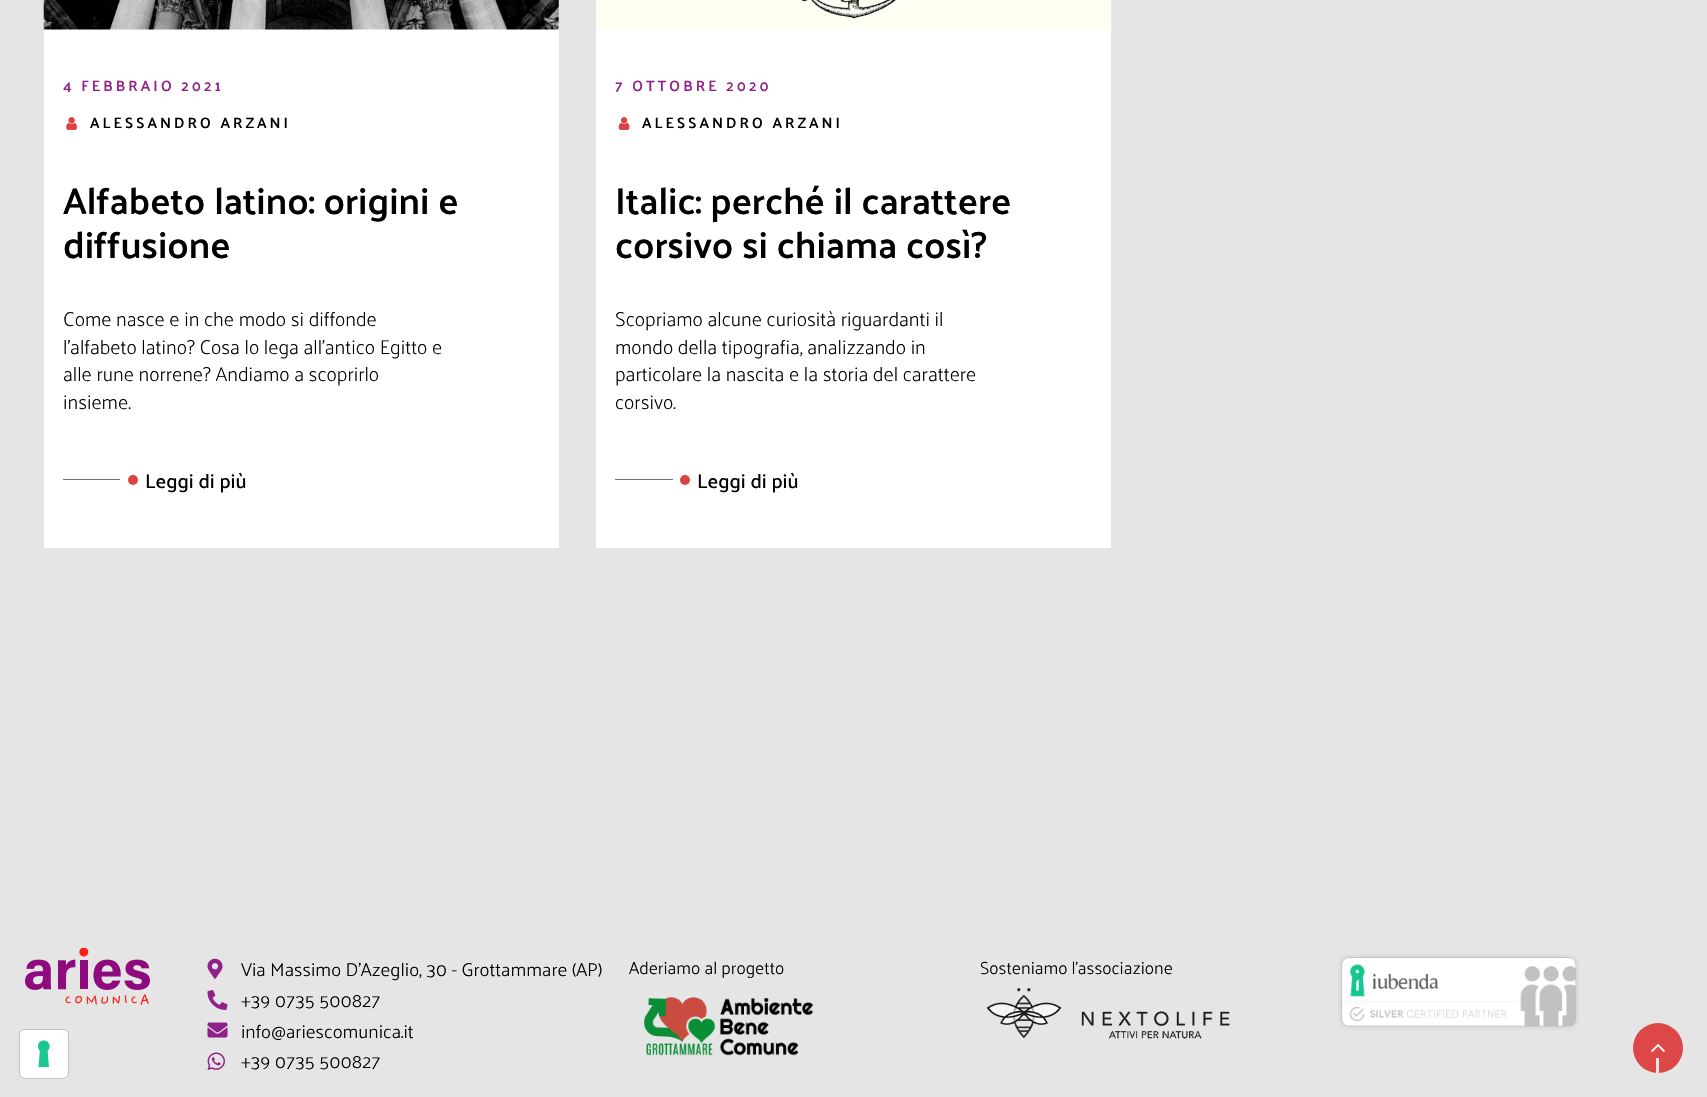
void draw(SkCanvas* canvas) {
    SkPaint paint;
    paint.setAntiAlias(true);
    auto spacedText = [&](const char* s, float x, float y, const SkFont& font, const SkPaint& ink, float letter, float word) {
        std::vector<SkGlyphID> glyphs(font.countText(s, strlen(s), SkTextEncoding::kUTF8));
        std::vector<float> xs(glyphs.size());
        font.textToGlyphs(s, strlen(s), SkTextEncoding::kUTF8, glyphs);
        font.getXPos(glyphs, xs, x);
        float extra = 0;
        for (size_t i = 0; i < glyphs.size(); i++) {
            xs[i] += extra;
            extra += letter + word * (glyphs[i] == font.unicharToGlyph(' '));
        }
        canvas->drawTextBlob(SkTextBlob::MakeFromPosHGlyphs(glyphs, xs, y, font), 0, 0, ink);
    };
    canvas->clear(0xFFE5E5E5);
    paint.setStyle(SkPaint::kStroke_Style);
    paint.setStrokeWidth(1);
    paint.setColor(0xFFC3C3C3);
    canvas->drawRoundRect(SkRect::MakeXYWH(19.5f, 1029.5f, 49, 49), 5.5f, 5.5f, paint);
    paint.setStyle(SkPaint::kFill_Style);
    paint.setColor(0xFFFFFFFF);
    canvas->drawRoundRect(SkRect::MakeXYWH(20, 1030, 48, 48), 5, 5, paint);
    canvas->drawImageRect(SkImages::DeferredFromEncodedData(SkData::MakeFromFileName("img1.png")), SkRect::MakeXYWH(37, 1040, 13, 28), SkSamplingOptions());
    canvas->drawRect(SkRect::MakeXYWH(44, 0, 515, 548), paint);
    canvas->drawImageRect(SkImages::DeferredFromEncodedData(SkData::MakeFromFileName("img2.png")), SkRect::MakeXYWH(43, 0, 516, 30), SkSamplingOptions());
    SkFont font1(fontMgr->matchFamilyStyle("Palanquin", SkFontStyle(600, SkFontStyle::kNormal_Width, SkFontStyle::kUpright_Slant)), 15);
    font1.setSubpixel(true);
    paint.setColor(0xFF90218A);
    spacedText("4 FEBBRAIO 2021", 63, 91, font1, paint, 3, 0);
    canvas->drawImageRect(SkImages::DeferredFromEncodedData(SkData::MakeFromFileName("img3.png")), SkRect::MakeXYWH(66, 117, 11, 13), SkSamplingOptions());
    paint.setColor(0xFF000000);
    spacedText("ALESSANDRO ARZANI", 90, 128, font1, paint, 3, 0);
    SkFont font2(fontMgr->matchFamilyStyle("Palanquin", SkFontStyle(600, SkFontStyle::kNormal_Width, SkFontStyle::kUpright_Slant)), 37.5f);
    font2.setSubpixel(true);
    canvas->drawString("Alfabeto latino: origini e", 63, 214, font2, paint);
    canvas->drawString("diffusione", 63, 258, font2, paint);
    SkFont font3(fontMgr->matchFamilyStyle("Palanquin", SkFontStyle(200, SkFontStyle::kNormal_Width, SkFontStyle::kUpright_Slant)), 20);
    font3.setSubpixel(true);
    canvas->drawString("Come nasce e in che modo si diffonde", 63, 326, font3, paint);
    canvas->drawString("l'alfabeto latino? Cosa lo lega all'antico Egitto e", 63, 354, font3, paint);
    canvas->drawString("alle rune norrene? Andiamo a scoprirlo", 63, 381, font3, paint);
    canvas->drawString("insieme.", 63, 409, font3, paint);
    paint.setColor(0xFFDD4242);
    canvas->drawCircle(133, 480, 5, paint);
    paint.setColor(0xFF717171);
    canvas->drawRect(SkRect::MakeXYWH(63, 479, 57, 1), paint);
    SkFont font4(fontMgr->matchFamilyStyle("Palanquin", SkFontStyle(500, SkFontStyle::kNormal_Width, SkFontStyle::kUpright_Slant)), 20);
    font4.setSubpixel(true);
    paint.setColor(0xFF000000);
    canvas->drawString("Leggi di più", 145, 488, font4, paint);
    paint.setColor(0xFFFFFFFF);
    canvas->drawRect(SkRect::MakeXYWH(596, 0, 515, 548), paint);
    canvas->drawImageRect(SkImages::DeferredFromEncodedData(SkData::MakeFromFileName("img4.png")), SkRect::MakeXYWH(596, 0, 516, 30), SkSamplingOptions());
    paint.setColor(0xFF90218A);
    spacedText("7 OTTOBRE 2020", 615, 91, font1, paint, 3, 0);
    canvas->drawImageRect(SkImages::DeferredFromEncodedData(SkData::MakeFromFileName("img5.png")), SkRect::MakeXYWH(618, 117, 12, 13), SkSamplingOptions());
    paint.setColor(0xFF000000);
    spacedText("ALESSANDRO ARZANI", 642, 128, font1, paint, 3, 0);
    canvas->drawString("Italic: perché il carattere", 615, 214, font2, paint);
    canvas->drawString("corsivo si chiama così?", 615, 258, font2, paint);
    canvas->drawString("Scopriamo alcune curiosità riguardanti il", 615, 326, font3, paint);
    canvas->drawString("mondo della tipografia, analizzando in", 615, 354, font3, paint);
    canvas->drawString("particolare la nascita e la storia del carattere", 615, 381, font3, paint);
    canvas->drawString("corsivo.", 615, 409, font3, paint);
    paint.setColor(0xFFDD4242);
    canvas->drawCircle(685, 480, 5, paint);
    paint.setColor(0xFF717171);
    canvas->drawRect(SkRect::MakeXYWH(615, 479, 58, 1), paint);
    paint.setColor(0xFF000000);
    canvas->drawString("Leggi di più", 697, 488, font4, paint);
    canvas->drawImageRect(SkImages::DeferredFromEncodedData(SkData::MakeFromFileName("img6.png")), SkRect::MakeXYWH(25, 948, 125, 57), SkSamplingOptions());
    canvas->drawImageRect(SkImages::DeferredFromEncodedData(SkData::MakeFromFileName("img7.png")), SkRect::MakeXYWH(207, 958, 16, 21), SkSamplingOptions());
    SkFont font5(fontMgr->matchFamilyStyle("Palanquin", SkFontStyle(300, SkFontStyle::kNormal_Width, SkFontStyle::kUpright_Slant)), 18.75f);
    font5.setSubpixel(true);
    canvas->drawString("Via Massimo D'Azeglio, 30 - Grottammare (AP)", 241, 976, font5, paint);
    canvas->drawImageRect(SkImages::DeferredFromEncodedData(SkData::MakeFromFileName("img8.png")), SkRect::MakeXYWH(207, 990, 21, 20), SkSamplingOptions());
    canvas->drawString("+39 0735 500827", 241, 1007, font5, paint);
    canvas->drawImageRect(SkImages::DeferredFromEncodedData(SkData::MakeFromFileName("img9.png")), SkRect::MakeXYWH(207, 1022, 21, 16), SkSamplingOptions());
    canvas->drawString("info@ariescomunica.it", 241, 1038, font5, paint);
    canvas->drawImageRect(SkImages::DeferredFromEncodedData(SkData::MakeFromFileName("img10.png")), SkRect::MakeXYWH(207, 1052, 18, 18), SkSamplingOptions());
    canvas->drawString("+39 0735 500827", 241, 1068, font5, paint);
    SkFont font6(fontMgr->matchFamilyStyle("Palanquin", SkFontStyle(300, SkFontStyle::kNormal_Width, SkFontStyle::kUpright_Slant)), 17.5f);
    font6.setSubpixel(true);
    canvas->drawString("Aderiamo al progetto", 629, 974, font6, paint);
    canvas->drawImageRect(SkImages::DeferredFromEncodedData(SkData::MakeFromFileName("img11.png")), SkRect::MakeXYWH(644, 997, 170, 59), SkSamplingOptions());
    canvas->drawString("Sosteniamo l’associazione", 980, 974, font6, paint);
    canvas->drawImageRect(SkImages::DeferredFromEncodedData(SkData::MakeFromFileName("img12.png")), SkRect::MakeXYWH(987, 988, 243, 51), SkSamplingOptions());
    canvas->drawImageRect(SkImages::DeferredFromEncodedData(SkData::MakeFromFileName("img13.png")), SkRect::MakeXYWH(1338, 954, 241, 76), SkSamplingOptions());
    paint.setColor(0xFFDD4747);
    canvas->drawCircle(1658, 1048, 25, paint);
    canvas->drawImageRect(SkImages::DeferredFromEncodedData(SkData::MakeFromFileName("img14.png")), SkRect::MakeXYWH(1651, 1044, 14, 8), SkSamplingOptions());
    paint.setColor(0xFFE5E5E5);
    canvas->drawRect(SkRect::MakeXYWH(1656, 1058, 3, 15), paint);
}
